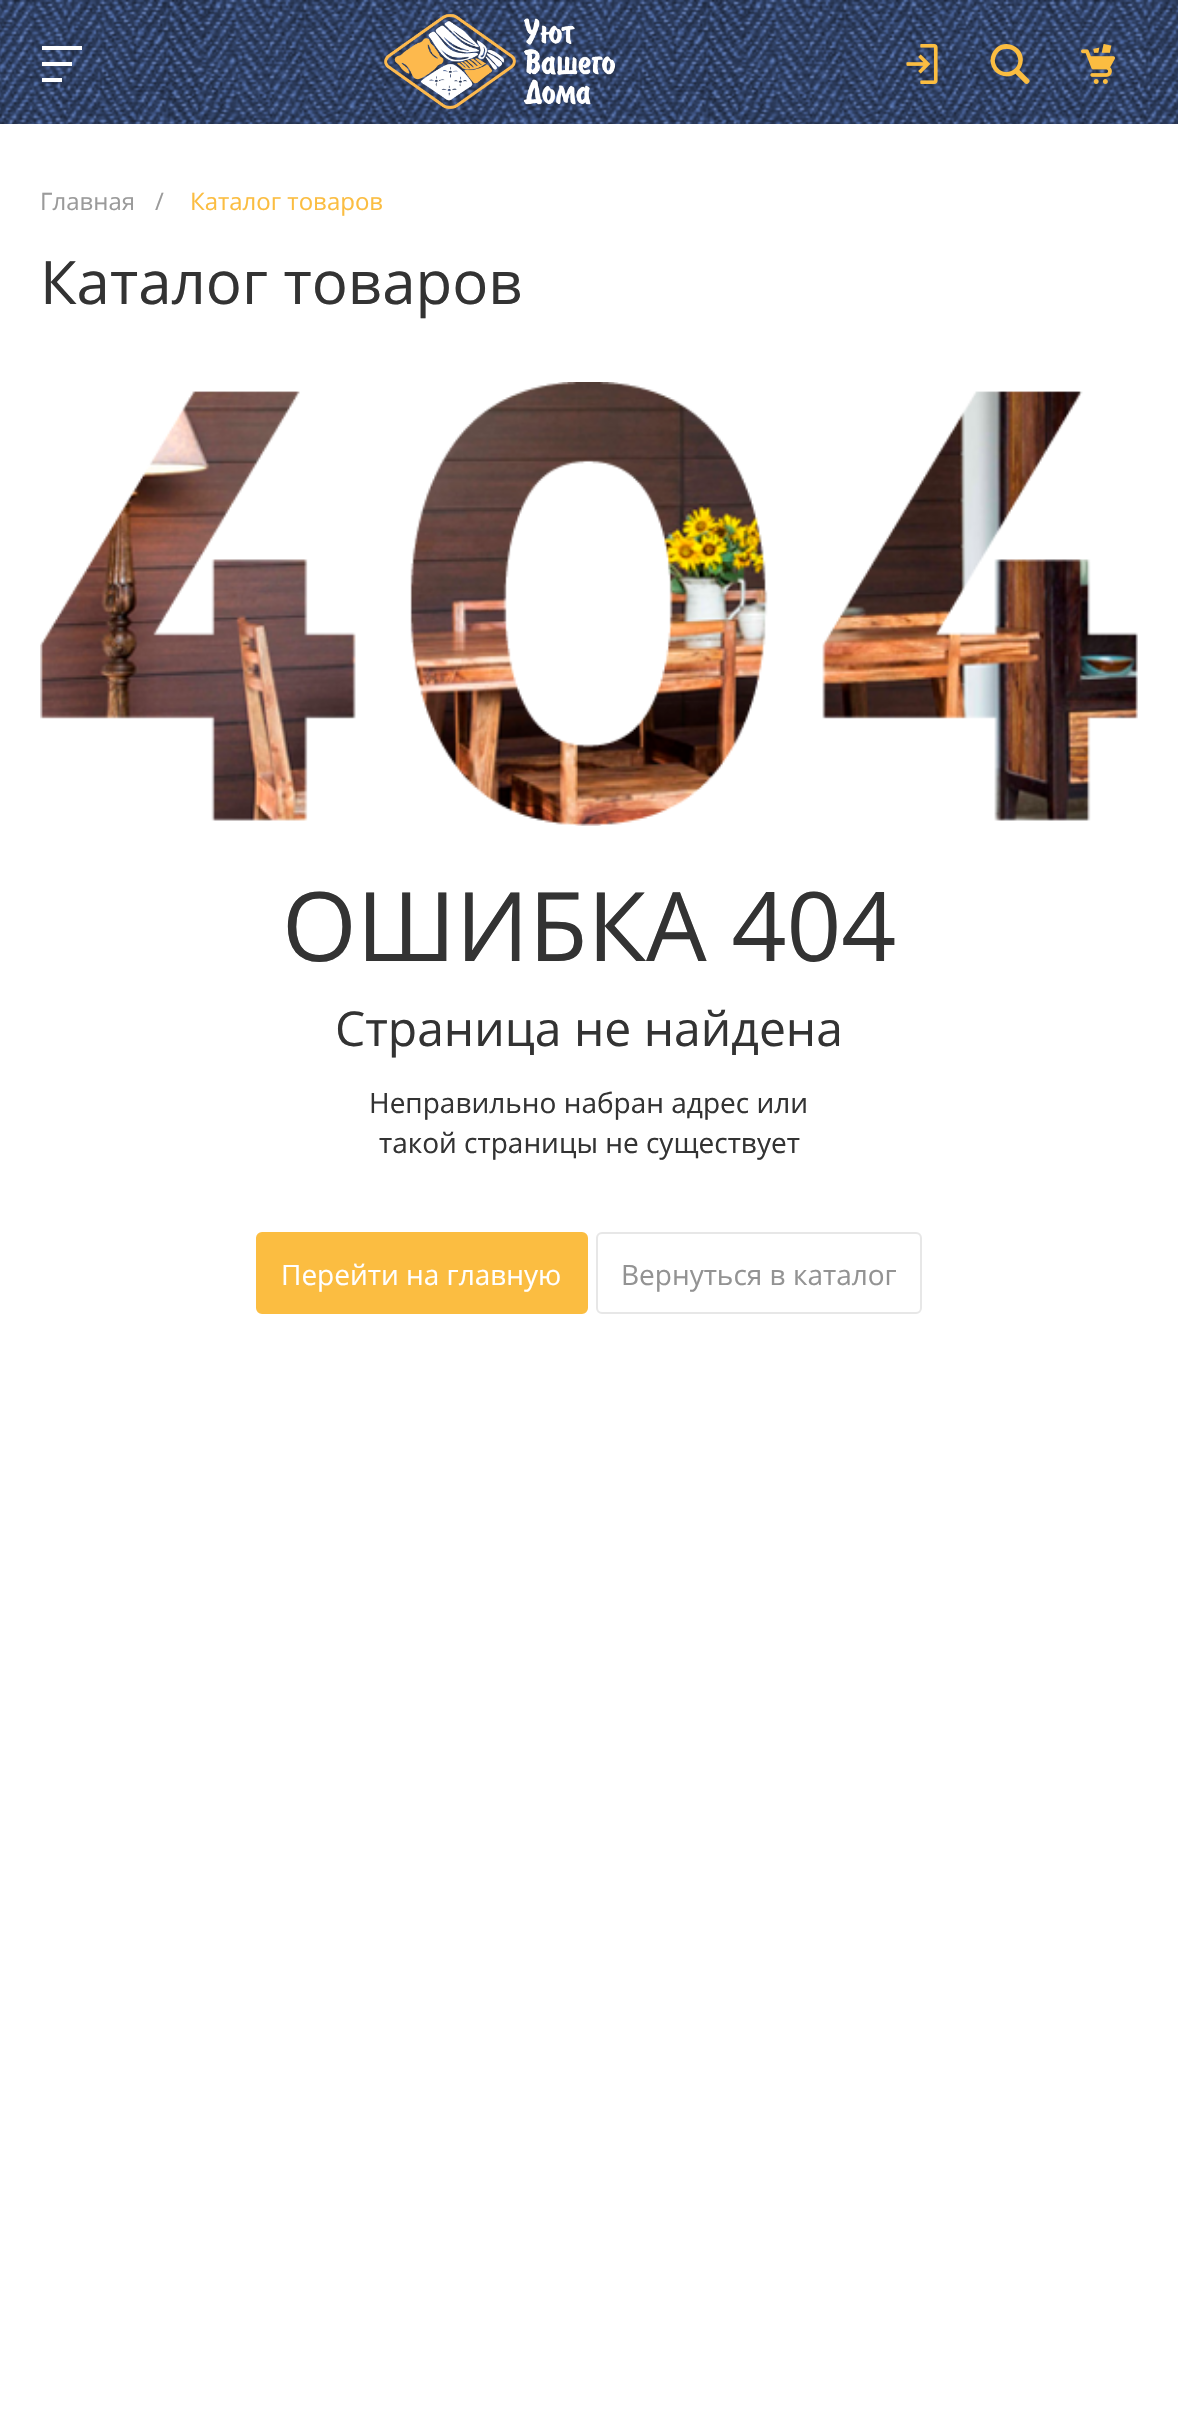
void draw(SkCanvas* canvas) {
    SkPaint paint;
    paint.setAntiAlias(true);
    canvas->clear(0xFFFFFFFF);
    canvas->drawImageRect(SkImages::DeferredFromEncodedData(SkData::MakeFromFileName("img1.png")), SkRect::MakeXYWH(0, 0, 1178, 124), SkSamplingOptions());
    paint.setColor(0xFFFFFFFF);
    canvas->drawPath(SkPathBuilder().moveTo(42, 46).lineTo(42, 50).lineTo(82, 50).lineTo(82, 46).close().moveTo(42, 62).lineTo(42, 66).lineTo(72, 66).lineTo(72, 62).close().moveTo(42, 78).lineTo(42, 82).lineTo(62, 82).lineTo(62, 78).close().detach(), paint);
    canvas->drawImageRect(SkImages::DeferredFromEncodedData(SkData::MakeFromFileName("img2.png")), SkRect::MakeXYWH(384, 14, 231, 95), SkSamplingOptions());
    canvas->drawImageRect(SkImages::DeferredFromEncodedData(SkData::MakeFromFileName("img3.png")), SkRect::MakeXYWH(906, 44, 32, 40), SkSamplingOptions());
    canvas->drawImageRect(SkImages::DeferredFromEncodedData(SkData::MakeFromFileName("img4.png")), SkRect::MakeXYWH(990, 44, 40, 40), SkSamplingOptions());
    canvas->drawImageRect(SkImages::DeferredFromEncodedData(SkData::MakeFromFileName("img5.png")), SkRect::MakeXYWH(1081, 44, 34, 40), SkSamplingOptions());
    SkFont font1(fontMgr->matchFamilyStyle("Open Sans", SkFontStyle::Normal()), 24);
    font1.setSubpixel(true);
    paint.setColor(0xFF9A9A9A);
    canvas->drawString("Главная", 40, 210, font1, paint);
    canvas->drawString("/", 155, 210, font1, paint);
    paint.setColor(0xFFFBBD41);
    canvas->drawString("Каталог товаров", 190, 210, font1, paint);
    SkFont font2(fontMgr->matchFamilyStyle("Open Sans", SkFontStyle::Normal()), 60);
    font2.setSubpixel(true);
    paint.setColor(0xFF333333);
    canvas->drawString("Каталог товаров", 40, 304, font2, paint);
    canvas->drawImageRect(SkImages::DeferredFromEncodedData(SkData::MakeFromFileName("img6.png")), SkRect::MakeXYWH(40, 382, 1098, 444), SkSamplingOptions());
    SkFont font3(fontMgr->matchFamilyStyle("Open Sans", SkFontStyle::Normal()), 96);
    font3.setSubpixel(true);
    canvas->drawString("ОШИБКА 404", 282, 961, font3, paint);
    SkFont font4(fontMgr->matchFamilyStyle("Open Sans", SkFontStyle::Normal()), 48);
    font4.setSubpixel(true);
    canvas->drawString("Страница не найдена", 335, 1046, font4, paint);
    SkFont font5(fontMgr->matchFamilyStyle("Open Sans", SkFontStyle::Normal()), 28);
    font5.setSubpixel(true);
    canvas->drawString("Неправильно набран адрес или", 369, 1113, font5, paint);
    canvas->drawString("такой страницы не существует", 379, 1153, font5, paint);
    paint.setColor(0xFFFBBD41);
    canvas->drawRoundRect(SkRect::MakeXYWH(257, 1233, 330, 80), 5, 5, paint);
    paint.setStyle(SkPaint::kStroke_Style);
    paint.setStrokeWidth(2);
    canvas->drawRoundRect(SkRect::MakeXYWH(257, 1233, 330, 80), 5, 5, paint);
    paint.setStyle(SkPaint::kFill_Style);
    paint.setColor(0xFFFFFFFF);
    canvas->drawString("Перейти на главную", 281, 1285, font5, paint);
    paint.setStyle(SkPaint::kStroke_Style);
    paint.setColor(0xFFE7E7E7);
    canvas->drawRoundRect(SkRect::MakeXYWH(597, 1233, 324, 80), 5, 5, paint);
    paint.setStyle(SkPaint::kFill_Style);
    paint.setColor(0xFF939393);
    canvas->drawString("Вернуться в каталог", 621, 1285, font5, paint);
}
